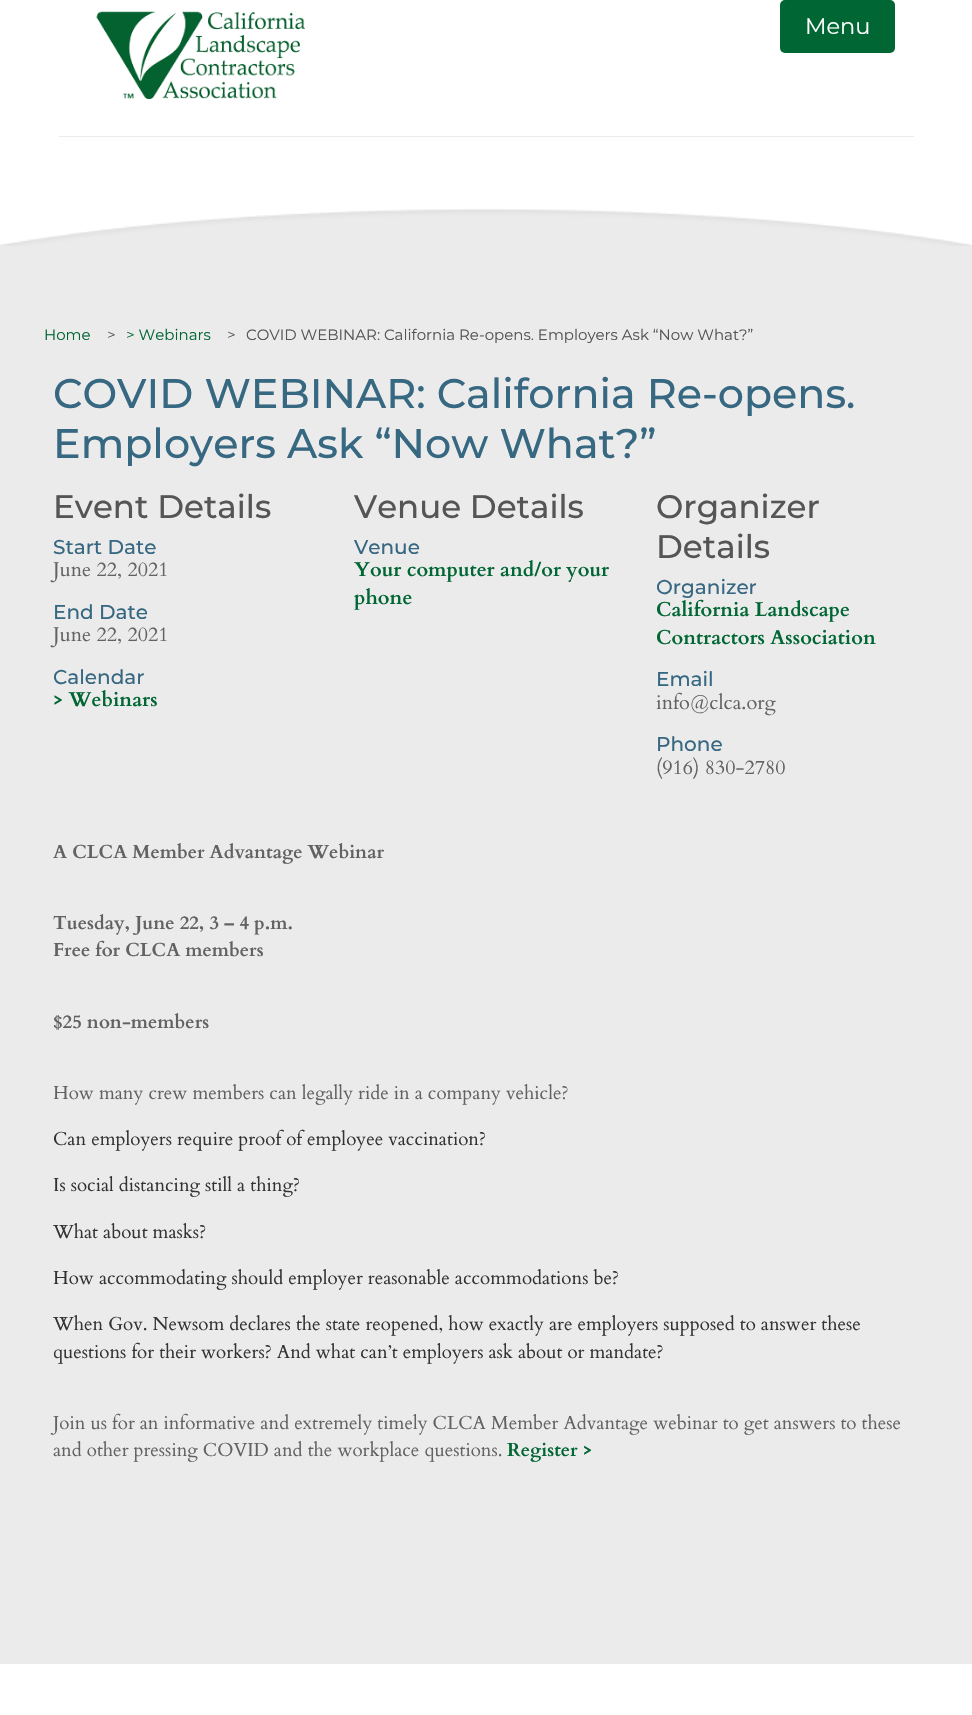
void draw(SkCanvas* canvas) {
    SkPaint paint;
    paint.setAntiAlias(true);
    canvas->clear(0xFFECEBEB);
    paint.setColor(0xFFFFFFFF);
    canvas->drawRect(SkRect::MakeXYWH(0, 0, 972, 139), paint);
    paint.setColor(0xFFEBEBEB);
    canvas->drawRect(SkRect::MakeXYWH(59, 136, 855, 1), paint);
    canvas->drawImageRect(SkImages::DeferredFromEncodedData(SkData::MakeFromFileName("img1.png")), SkRect::MakeXYWH(96, 11, 209, 88), SkSamplingOptions());
    paint.setColor(0xFF006633);
    canvas->drawRoundRect(SkRect::MakeXYWH(780, 0, 115, 53), 5, 5, paint);
    SkFont font1(fontMgr->matchFamilyStyle("Montserrat", SkFontStyle::Normal()), 22.5f);
    font1.setSubpixel(true);
    paint.setColor(0xFFFFFFFF);
    canvas->drawString("Menu", 805, 34, font1, paint);
    canvas->drawImageRect(SkImages::DeferredFromEncodedData(SkData::MakeFromFileName("img2.png")), SkRect::MakeXYWH(0, 139, 972, 107), SkSamplingOptions());
    SkFont font2(fontMgr->matchFamilyStyle("Montserrat", SkFontStyle::Normal()), 15);
    font2.setSubpixel(true);
    paint.setColor(0xFF006633);
    canvas->drawString("Home", 44, 340, font2, paint);
    paint.setColor(0xFF555555);
    canvas->drawString(">", 107, 340, font2, paint);
    paint.setColor(0xFF006633);
    canvas->drawString("> Webinars", 126, 340, font2, paint);
    paint.setColor(0xFF555555);
    canvas->drawString(">", 227, 340, font2, paint);
    canvas->drawString("COVID WEBINAR: California Re-opens. Employers Ask “Now What?”", 246, 340, font2, paint);
    SkFont font3(fontMgr->matchFamilyStyle("Montserrat", SkFontStyle(500, SkFontStyle::kNormal_Width, SkFontStyle::kUpright_Slant)), 41.25f);
    font3.setSubpixel(true);
    paint.setColor(0xFF376882);
    canvas->drawString("COVID WEBINAR: California Re-opens.", 53, 408, font3, paint);
    canvas->drawString("Employers Ask “Now What?”", 53, 458, font3, paint);
    SkFont font4(fontMgr->matchFamilyStyle("Montserrat", SkFontStyle(500, SkFontStyle::kNormal_Width, SkFontStyle::kUpright_Slant)), 32.5f);
    font4.setSubpixel(true);
    paint.setColor(0xFF555555);
    canvas->drawString("Event Details", 53, 518, font4, paint);
    SkFont font5(fontMgr->matchFamilyStyle("Montserrat", SkFontStyle(500, SkFontStyle::kNormal_Width, SkFontStyle::kUpright_Slant)), 20);
    font5.setSubpixel(true);
    paint.setColor(0xFF376882);
    canvas->drawString("Start Date", 53, 554, font5, paint);
    SkFont font6(fontMgr->matchFamilyStyle("Cardo", SkFontStyle::Normal()), 20);
    font6.setSubpixel(true);
    paint.setColor(0xFF626262);
    canvas->drawString("June 22, 2021", 53, 576, font6, paint);
    paint.setColor(0xFF376882);
    canvas->drawString("End Date", 53, 619, font5, paint);
    paint.setColor(0xFF626262);
    canvas->drawString("June 22, 2021", 53, 641, font6, paint);
    paint.setColor(0xFF376882);
    canvas->drawString("Calendar", 53, 684, font5, paint);
    SkFont font7(fontMgr->matchFamilyStyle("Cardo", SkFontStyle::Bold()), 20);
    font7.setSubpixel(true);
    paint.setColor(0xFF006633);
    canvas->drawString("> Webinars", 53, 706, font7, paint);
    paint.setColor(0xFF555555);
    canvas->drawString("Venue Details", 354, 518, font4, paint);
    paint.setColor(0xFF376882);
    canvas->drawString("Venue", 354, 554, font5, paint);
    paint.setColor(0xFF006633);
    canvas->drawString("Your computer and/or your", 354, 576, font7, paint);
    canvas->drawString("phone", 354, 604, font7, paint);
    paint.setColor(0xFF555555);
    canvas->drawString("Organizer", 656, 518, font4, paint);
    canvas->drawString("Details", 656, 558, font4, paint);
    paint.setColor(0xFF376882);
    canvas->drawString("Organizer", 656, 594, font5, paint);
    paint.setColor(0xFF006633);
    canvas->drawString("California Landscape", 656, 616, font7, paint);
    canvas->drawString("Contractors Association", 656, 644, font7, paint);
    paint.setColor(0xFF376882);
    canvas->drawString("Email", 656, 686, font5, paint);
    paint.setColor(0xFF626262);
    canvas->drawString("info@clca.org", 656, 709, font6, paint);
    paint.setColor(0xFF376882);
    canvas->drawString("Phone", 656, 751, font5, paint);
    paint.setColor(0xFF626262);
    canvas->drawString("(916) 830-2780", 656, 774, font6, paint);
    SkFont font8(fontMgr->matchFamilyStyle("Cardo", SkFontStyle::Bold()), 18.75f);
    font8.setSubpixel(true);
    canvas->drawString("A CLCA Member Advantage Webinar", 53, 858, font8, paint);
    canvas->drawString("Tuesday, June 22, 3 – 4 p.m.", 53, 929, font8, paint);
    canvas->drawString("Free for CLCA members", 53, 956, font8, paint);
    canvas->drawString("$25 non-members", 53, 1028, font8, paint);
    SkFont font9(fontMgr->matchFamilyStyle("Cardo", SkFontStyle::Normal()), 18.75f);
    font9.setSubpixel(true);
    canvas->drawString("How many crew members can legally ride in a company vehicle?", 53, 1099, font9, paint);
    paint.setColor(0xFF333333);
    canvas->drawString("Can employers require proof of employee vaccination?", 53, 1145, font9, paint);
    canvas->drawString("Is social distancing still a thing?", 53, 1191, font9, paint);
    canvas->drawString("What about masks?", 53, 1238, font9, paint);
    canvas->drawString("How accommodating should employer reasonable accommodations be?", 53, 1284, font9, paint);
    canvas->drawString("When Gov. Newsom declares the state reopened, how exactly are employers supposed to answer these", 53, 1330, font9, paint);
    canvas->drawString("questions for their workers? And what can’t employers ask about or mandate?", 53, 1358, font9, paint);
    paint.setColor(0xFF626262);
    canvas->drawString("Join us for an informative and extremely timely CLCA Member Advantage webinar to get answers to these", 53, 1429, font9, paint);
    canvas->drawString("and other pressing COVID and the workplace questions.", 53, 1456, font9, paint);
    paint.setColor(0xFF006633);
    canvas->drawString("Register >", 507, 1456, font8, paint);
    paint.setColor(0xFFFFFFFF);
    canvas->drawRect(SkRect::MakeXYWH(0, 1664, 972, 51), paint);
}
